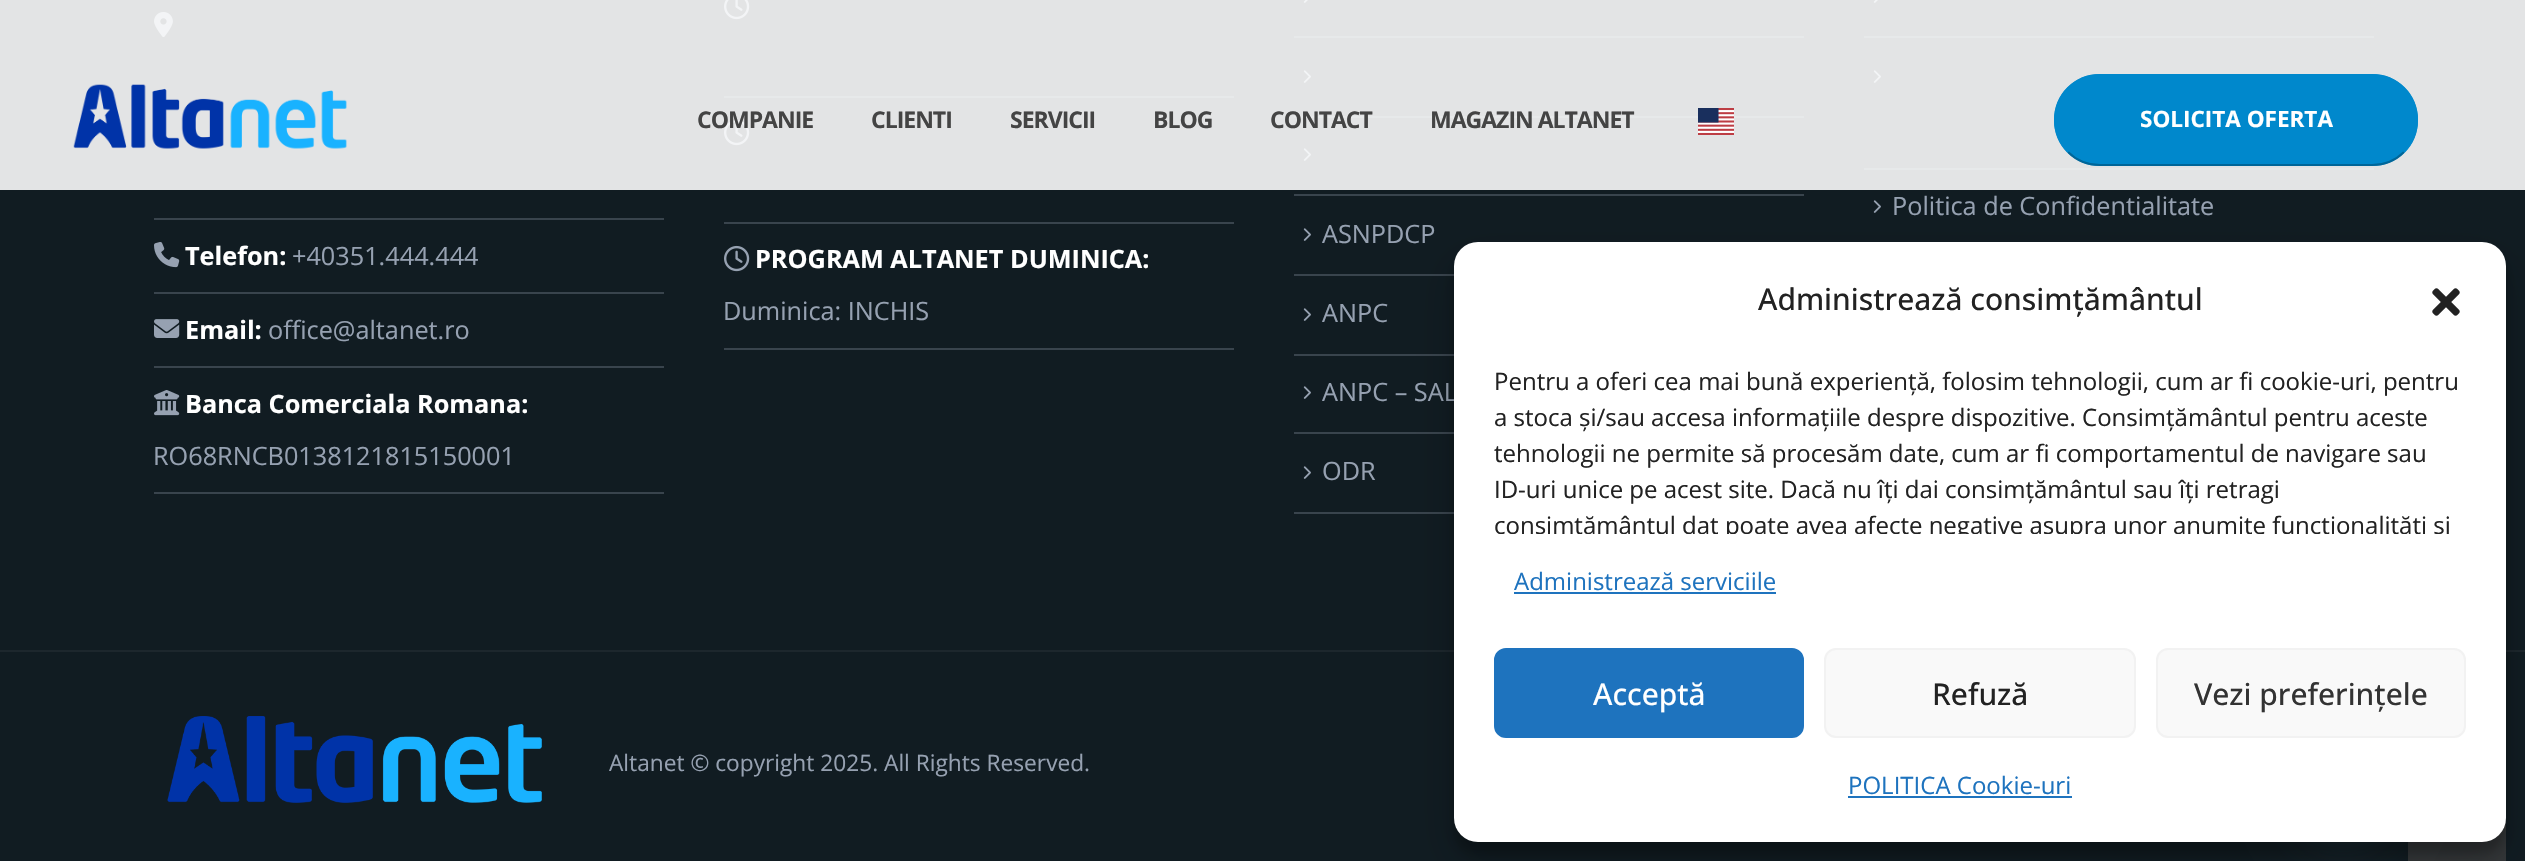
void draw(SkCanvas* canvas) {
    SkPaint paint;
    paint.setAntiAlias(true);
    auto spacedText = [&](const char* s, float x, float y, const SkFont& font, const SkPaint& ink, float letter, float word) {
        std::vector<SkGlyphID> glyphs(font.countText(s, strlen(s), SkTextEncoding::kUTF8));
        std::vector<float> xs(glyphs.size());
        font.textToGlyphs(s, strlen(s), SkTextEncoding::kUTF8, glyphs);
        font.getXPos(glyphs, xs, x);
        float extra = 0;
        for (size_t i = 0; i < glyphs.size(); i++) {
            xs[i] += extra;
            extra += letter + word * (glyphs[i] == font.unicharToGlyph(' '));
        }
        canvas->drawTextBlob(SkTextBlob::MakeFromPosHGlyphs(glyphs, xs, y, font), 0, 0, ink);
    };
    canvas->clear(0xFF111C22);
    canvas->drawImageRect(SkImages::DeferredFromEncodedData(SkData::MakeFromFileName("img3.png")), SkRect::MakeXYWH(1873, 0, 5, 3), SkSamplingOptions());
    paint.setColor(0xFF39444D);
    canvas->drawRect(SkRect::MakeXYWH(1864, 36, 510, 2), paint);
    canvas->drawImageRect(SkImages::DeferredFromEncodedData(SkData::MakeFromFileName("img4.png")), SkRect::MakeXYWH(1873, 70, 8, 13), SkSamplingOptions());
    canvas->drawRect(SkRect::MakeXYWH(1864, 168, 510, 2), paint);
    canvas->drawImageRect(SkImages::DeferredFromEncodedData(SkData::MakeFromFileName("img5.png")), SkRect::MakeXYWH(154, 12, 19, 26), SkSamplingOptions());
    canvas->drawImageRect(SkImages::DeferredFromEncodedData(SkData::MakeFromFileName("img9.png")), SkRect::MakeXYWH(724, 0, 26, 20), SkSamplingOptions());
    canvas->drawRect(SkRect::MakeXYWH(724, 96, 510, 2), paint);
    canvas->drawImageRect(SkImages::DeferredFromEncodedData(SkData::MakeFromFileName("img10.png")), SkRect::MakeXYWH(724, 119, 26, 27), SkSamplingOptions());
    canvas->drawImageRect(SkImages::DeferredFromEncodedData(SkData::MakeFromFileName("img3.png")), SkRect::MakeXYWH(1303, 0, 5, 3), SkSamplingOptions());
    canvas->drawRect(SkRect::MakeXYWH(1294, 36, 510, 2), paint);
    canvas->drawImageRect(SkImages::DeferredFromEncodedData(SkData::MakeFromFileName("img4.png")), SkRect::MakeXYWH(1303, 70, 8, 13), SkSamplingOptions());
    canvas->drawRect(SkRect::MakeXYWH(1294, 116, 510, 2), paint);
    canvas->drawImageRect(SkImages::DeferredFromEncodedData(SkData::MakeFromFileName("img4.png")), SkRect::MakeXYWH(1303, 148, 8, 13), SkSamplingOptions());
    paint.setColor(0xE0FFFFFF);
    canvas->drawRect(SkRect::MakeXYWH(0, 0, 2525, 190), paint);
    canvas->drawImageRect(SkImages::DeferredFromEncodedData(SkData::MakeFromFileName("img1.png")), SkRect::MakeXYWH(73, 84, 274, 65), SkSamplingOptions());
    SkFont font1(fontMgr->matchFamilyStyle("Open Sans", SkFontStyle::Bold()), 23);
    font1.setSubpixel(true);
    paint.setColor(0xFF444444);
    spacedText("COMPANIE", 697, 128, font1, paint, -1, 0);
    spacedText("CLIENTI", 871, 128, font1, paint, -1, 0);
    spacedText("SERVICII", 1010, 128, font1, paint, -1, 0);
    spacedText("BLOG", 1153, 128, font1, paint, -1, 0);
    spacedText("CONTACT", 1270, 128, font1, paint, -1, 0);
    spacedText("MAGAZIN ALTANET", 1430, 128, font1, paint, -1, 0);
    canvas->drawImageRect(SkImages::DeferredFromEncodedData(SkData::MakeFromFileName("img2.png")), SkRect::MakeXYWH(1698, 108, 36, 27), SkSamplingOptions());
    paint.setColor(0xFF0088CC);
    canvas->drawRoundRect(SkRect::MakeXYWH(2054, 74, 364, 92), 46, 46, paint);
    paint.setStyle(SkPaint::kStroke_Style);
    paint.setStrokeWidth(2);
    paint.setColor(0xFF006699);
    canvas->drawPath(SkPathBuilder().moveTo(2404, 152).cubicTo(2395.5f, 160.5f, 2384, 165, 2372, 165).lineTo(2100, 165).cubicTo(2088, 165, 2076.5f, 160.5f, 2068, 152).detach(), paint);
    paint.setColor(0xFF0088CC);
    canvas->drawPath(SkPathBuilder().moveTo(2068, 152).cubicTo(2059.5f, 143.5f, 2055, 132, 2055, 120).cubicTo(2055, 108, 2059.5f, 96.5f, 2068, 88).cubicTo(2076.5f, 79.5f, 2088, 75, 2100, 75).lineTo(2372, 75).cubicTo(2384, 75, 2395.5f, 79.5f, 2404, 88).cubicTo(2412.5f, 96.5f, 2417, 108, 2417, 120).cubicTo(2417, 132, 2412.5f, 143.5f, 2404, 152).detach(), paint);
    SkFont font2(fontMgr->matchFamilyStyle("Open Sans", SkFontStyle::Bold()), 22.5f);
    font2.setSubpixel(true);
    paint.setStyle(SkPaint::kFill_Style);
    paint.setColor(0xFFFFFFFF);
    canvas->drawString("SOLICITA OFERTA", 2140, 127, font2, paint);
    canvas->drawImageRect(SkImages::DeferredFromEncodedData(SkData::MakeFromFileName("img4.png")), SkRect::MakeXYWH(1873, 200, 8, 13), SkSamplingOptions());
    SkFont font3(fontMgr->matchFamilyStyle("Open Sans", SkFontStyle::Normal()), 25.25f);
    font3.setSubpixel(true);
    paint.setColor(0xFF96A1B1);
    canvas->drawString("Politica de Confidentialitate", 1892, 215, font3, paint);
    paint.setColor(0xFF39444D);
    canvas->drawRect(SkRect::MakeXYWH(154, 492, 510, 2), paint);
    canvas->drawRect(SkRect::MakeXYWH(154, 218, 510, 2), paint);
    canvas->drawImageRect(SkImages::DeferredFromEncodedData(SkData::MakeFromFileName("img6.png")), SkRect::MakeXYWH(154, 242, 26, 26), SkSamplingOptions());
    SkFont font4(fontMgr->matchFamilyStyle("Open Sans", SkFontStyle::Bold()), 25.25f);
    font4.setSubpixel(true);
    paint.setColor(0xFFFFFFFF);
    canvas->drawString("Telefon:", 185, 265, font4, paint);
    paint.setColor(0xFF96A1B1);
    canvas->drawString("+40351.444.444", 292, 265, font3, paint);
    paint.setColor(0xFF39444D);
    canvas->drawRect(SkRect::MakeXYWH(154, 292, 510, 2), paint);
    canvas->drawImageRect(SkImages::DeferredFromEncodedData(SkData::MakeFromFileName("img7.png")), SkRect::MakeXYWH(154, 319, 26, 19), SkSamplingOptions());
    paint.setColor(0xFFFFFFFF);
    canvas->drawString("Email:", 185, 339, font4, paint);
    paint.setColor(0xFF96A1B1);
    canvas->drawString("office@altanet.ro", 268, 339, font3, paint);
    paint.setColor(0xFF39444D);
    canvas->drawRect(SkRect::MakeXYWH(154, 366, 510, 2), paint);
    canvas->drawImageRect(SkImages::DeferredFromEncodedData(SkData::MakeFromFileName("img8.png")), SkRect::MakeXYWH(154, 390, 26, 26), SkSamplingOptions());
    paint.setColor(0xFFFFFFFF);
    canvas->drawString("Banca Comerciala Romana:", 185, 413, font4, paint);
    paint.setColor(0xFF96A1B1);
    canvas->drawString("RO68RNCB0138121815150001", 153, 465, font3, paint);
    paint.setColor(0xFF39444D);
    canvas->drawRect(SkRect::MakeXYWH(724, 348, 510, 2), paint);
    canvas->drawRect(SkRect::MakeXYWH(724, 222, 510, 2), paint);
    canvas->drawImageRect(SkImages::DeferredFromEncodedData(SkData::MakeFromFileName("img10.png")), SkRect::MakeXYWH(724, 245, 26, 27), SkSamplingOptions());
    paint.setColor(0xFFFFFFFF);
    canvas->drawString("PROGRAM ALTANET DUMINICA:", 755, 268, font4, paint);
    paint.setColor(0xFF96A1B1);
    canvas->drawString("Duminica: INCHIS", 723, 320, font3, paint);
    paint.setColor(0xFF39444D);
    canvas->drawRect(SkRect::MakeXYWH(1294, 512, 160, 2), paint);
    canvas->drawRect(SkRect::MakeXYWH(1294, 194, 510, 2), paint);
    canvas->drawImageRect(SkImages::DeferredFromEncodedData(SkData::MakeFromFileName("img4.png")), SkRect::MakeXYWH(1303, 228, 8, 13), SkSamplingOptions());
    paint.setColor(0xFF96A1B1);
    canvas->drawString("ASNPDCP", 1322, 243, font3, paint);
    paint.setColor(0xFF39444D);
    canvas->drawRect(SkRect::MakeXYWH(1294, 274, 160, 2), paint);
    canvas->drawImageRect(SkImages::DeferredFromEncodedData(SkData::MakeFromFileName("img4.png")), SkRect::MakeXYWH(1303, 308, 8, 13), SkSamplingOptions());
    paint.setColor(0xFF96A1B1);
    canvas->drawString("ANPC", 1322, 322, font3, paint);
    paint.setColor(0xFF39444D);
    canvas->drawRect(SkRect::MakeXYWH(1294, 354, 160, 2), paint);
    canvas->drawImageRect(SkImages::DeferredFromEncodedData(SkData::MakeFromFileName("img4.png")), SkRect::MakeXYWH(1303, 386, 8, 13), SkSamplingOptions());
    paint.setColor(0xFF96A1B1);
    canvas->drawString("ANPC – SAL", 1322, 401, font3, paint);
    paint.setColor(0xFF39444D);
    canvas->drawRect(SkRect::MakeXYWH(1294, 432, 160, 2), paint);
    canvas->drawImageRect(SkImages::DeferredFromEncodedData(SkData::MakeFromFileName("img4.png")), SkRect::MakeXYWH(1303, 466, 8, 13), SkSamplingOptions());
    paint.setColor(0xFF96A1B1);
    canvas->drawString("ODR", 1322, 480, font3, paint);
    paint.setColor(0xFF1D272D);
    canvas->drawRect(SkRect::MakeXYWH(0, 650, 2525, 2), paint);
    canvas->drawImageRect(SkImages::DeferredFromEncodedData(SkData::MakeFromFileName("img11.png")), SkRect::MakeXYWH(167, 716, 375, 87), SkSamplingOptions());
    SkFont font5(fontMgr->matchFamilyStyle("Open Sans", SkFontStyle::Normal()), 22.7f);
    font5.setSubpixel(true);
    paint.setColor(0xFF96A1B1);
    canvas->drawString("Altanet © copyright 2025. All Rights Reserved.", 609, 771, font5, paint);
    paint.setColor(0xFF343739);
    canvas->drawRect(SkRect::MakeXYWH(2408, 818, 98, 43), paint);
    paint.setColor(0x3B000000);
    paint.setMaskFilter(SkMaskFilter::MakeBlur(kNormal_SkBlurStyle, 6));
    canvas->drawRoundRect(SkRect::MakeXYWH(1454, 254, 1052, 600), 24, 24, paint);
    paint.setMaskFilter(nullptr);
    paint.setColor(0x30000000);
    paint.setMaskFilter(SkMaskFilter::MakeBlur(kNormal_SkBlurStyle, 20));
    canvas->drawRoundRect(SkRect::MakeXYWH(1454, 262, 1052, 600), 24, 24, paint);
    paint.setMaskFilter(nullptr);
    paint.setColor(0x2949687E);
    paint.setMaskFilter(SkMaskFilter::MakeBlur(kNormal_SkBlurStyle, 24));
    canvas->drawRoundRect(SkRect::MakeXYWH(2290, 736, 108, 108), 54, 54, paint);
    paint.setMaskFilter(nullptr);
    paint.setColor(0xFFFFFFFF);
    canvas->drawRoundRect(SkRect::MakeXYWH(1454, 242, 1052, 600), 24, 24, paint);
    SkFont font6(fontMgr->matchFamilyStyle("Open Sans", SkFontStyle(500, SkFontStyle::kNormal_Width, SkFontStyle::kUpright_Slant)), 30);
    font6.setSubpixel(true);
    paint.setColor(0xFF222222);
    canvas->drawString("Administrează consimțământul", 1758, 310, font6, paint);
    canvas->drawImageRect(SkImages::DeferredFromEncodedData(SkData::MakeFromFileName("img12.png")), SkRect::MakeXYWH(2432, 288, 28, 28), SkSamplingOptions());
    SkFont font7(fontMgr->matchFamilyStyle("Open Sans", SkFontStyle::Normal()), 24);
    font7.setSubpixel(true);
    canvas->drawString("Pentru a oferi cea mai bună experiență, folosim tehnologii, cum ar fi cookie-uri, pentru", 1494, 390, font7, paint);
    canvas->drawString("a stoca și/sau accesa informațiile despre dispozitive. Consimțământul pentru aceste", 1494, 426, font7, paint);
    canvas->drawString("tehnologii ne permite să procesăm date, cum ar fi comportamentul de navigare sau", 1494, 462, font7, paint);
    canvas->drawString("ID-uri unice pe acest site. Dacă nu îți dai consimțământul sau îți retragi", 1494, 498, font7, paint);
    canvas->save();
    canvas->clipRect(SkRect::MakeXYWH(1494, 364, 972, 170));
    canvas->drawString("consimțământul dat poate avea afecte negative asupra unor anumite funcționalități și", 1494, 534, font7, paint);
    canvas->restore();
    paint.setColor(0xFF1E73BE);
    canvas->drawString("Administrează serviciile", 1514, 590, font7, paint);
    canvas->drawRect(SkRect::MakeXYWH(1514, 592, 262, 2), paint);
    canvas->drawRoundRect(SkRect::MakeXYWH(1495, 649, 308, 88), 11, 11, paint);
    paint.setStyle(SkPaint::kStroke_Style);
    canvas->drawRoundRect(SkRect::MakeXYWH(1495, 649, 308, 88), 11, 11, paint);
    paint.setStyle(SkPaint::kFill_Style);
    paint.setColor(0xFFFFFFFF);
    canvas->drawString("Acceptă", 1593, 705, font6, paint);
    paint.setColor(0xFFF9F9F9);
    canvas->drawRoundRect(SkRect::MakeXYWH(1825, 649, 310, 88), 11, 11, paint);
    paint.setStyle(SkPaint::kStroke_Style);
    paint.setColor(0xFFF2F2F2);
    canvas->drawRoundRect(SkRect::MakeXYWH(1825, 649, 310, 88), 11, 11, paint);
    paint.setStyle(SkPaint::kFill_Style);
    paint.setColor(0xFF222222);
    canvas->drawString("Refuză", 1932, 705, font6, paint);
    paint.setColor(0xFFF9F9F9);
    canvas->drawRoundRect(SkRect::MakeXYWH(2157, 649, 308, 88), 11, 11, paint);
    paint.setStyle(SkPaint::kStroke_Style);
    paint.setColor(0xFFF2F2F2);
    canvas->drawRoundRect(SkRect::MakeXYWH(2157, 649, 308, 88), 11, 11, paint);
    paint.setStyle(SkPaint::kFill_Style);
    paint.setColor(0xFF333333);
    canvas->drawString("Vezi preferințele", 2194, 705, font6, paint);
    paint.setColor(0xFF1E73BE);
    canvas->drawString("POLITICA Cookie-uri", 1848, 794, font7, paint);
    canvas->drawRect(SkRect::MakeXYWH(1848, 796, 224, 2), paint);
}
